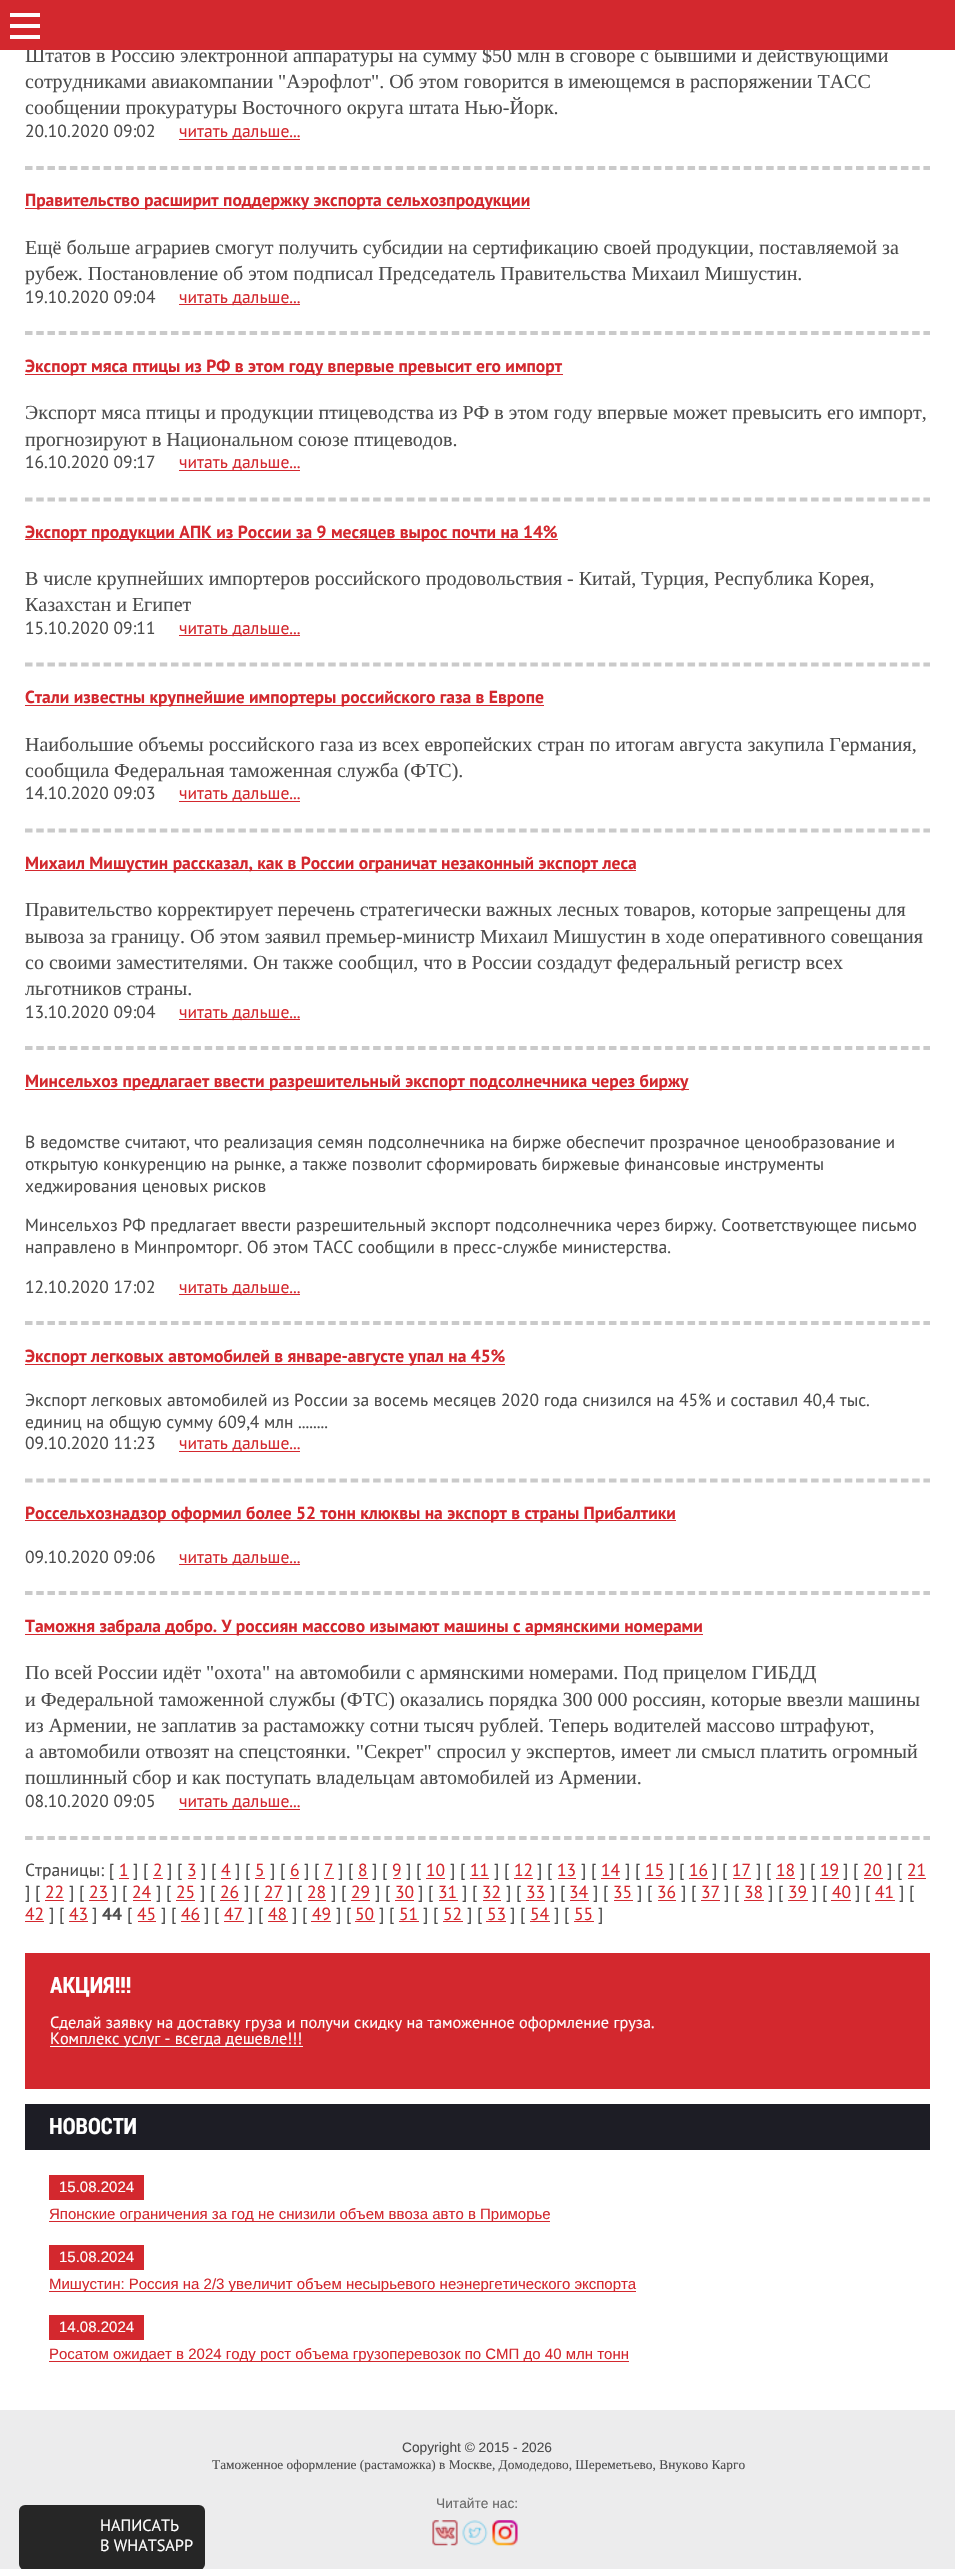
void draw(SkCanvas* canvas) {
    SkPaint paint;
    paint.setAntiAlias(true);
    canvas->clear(0xFFFFFFFF);
    SkFont font1(fontMgr->matchFamilyStyle("Liberation Serif", SkFontStyle::Normal()), 20);
    font1.setSubpixel(true);
    paint.setColor(0xFF4C4C4C);
    canvas->drawString("Штатов в Россию электронной аппаратуры на сумму $50 млн в сговоре с бывшими и действующими", 25, 62, font1, paint);
    paint.setColor(0xFFD3282E);
    canvas->drawRect(SkRect::MakeXYWH(0, 0, 955, 50), paint);
    paint.setColor(0xFFFFFFFF);
    canvas->drawRect(SkRect::MakeXYWH(10, 13, 30, 4), paint);
    canvas->drawRect(SkRect::MakeXYWH(10, 35, 30, 4), paint);
    canvas->drawRect(SkRect::MakeXYWH(10, 24, 30, 4), paint);
    paint.setStyle(SkPaint::kStroke_Style);
    paint.setStrokeWidth(3.8f);
    paint.setColor(0xFFCACACA);
    paint.setPathEffect(SkDashPathEffect::Make({{7.5f, 3.73f}}, 0));
    canvas->drawPath(SkPathBuilder().moveTo(25, 168).lineTo(930, 168).detach(), paint);
    paint.setPathEffect(nullptr);
    paint.setStyle(SkPaint::kFill_Style);
    paint.setColor(0xFF4C4C4C);
    canvas->drawString("сотрудниками авиакомпании \"Аэрофлот\". Об этом говорится в имеющемся в распоряжении ТАСС", 25, 88, font1, paint);
    canvas->drawString("сообщении прокуратуры Восточного округа штата Нью-Йорк.", 25, 114, font1, paint);
    SkFont font2(fontMgr->matchFamilyStyle("PT Sans", SkFontStyle::Normal()), 17.5f);
    font2.setSubpixel(true);
    canvas->drawString("20.10.2020 09:02", 25, 137, font2, paint);
    paint.setColor(0xFFD3282E);
    canvas->drawRect(SkRect::MakeXYWH(179, 139, 121, 1), paint);
    canvas->drawString("читать дальше...", 179, 137, font2, paint);
    paint.setStyle(SkPaint::kStroke_Style);
    paint.setColor(0xFFCACACA);
    paint.setPathEffect(SkDashPathEffect::Make({{7.5f, 3.73f}}, 0));
    canvas->drawPath(SkPathBuilder().moveTo(25, 333).lineTo(930, 333).detach(), paint);
    paint.setPathEffect(nullptr);
    paint.setStyle(SkPaint::kFill_Style);
    paint.setColor(0xFFD3282E);
    canvas->drawRect(SkRect::MakeXYWH(25, 208, 505, 1), paint);
    SkFont font3(fontMgr->matchFamilyStyle("PT Sans", SkFontStyle::Bold()), 17.5f);
    font3.setSubpixel(true);
    canvas->drawString("Правительство расширит поддержку экспорта сельхозпродукции", 25, 206, font3, paint);
    paint.setColor(0xFF4C4C4C);
    canvas->drawString("Ещё больше аграриев смогут получить субсидии на сертификацию своей продукции, поставляемой за", 25, 254, font1, paint);
    canvas->drawString("рубеж. Постановление об этом подписал Председатель Правительства Михаил Мишустин.", 25, 280, font1, paint);
    canvas->drawString("19.10.2020 09:04", 25, 303, font2, paint);
    paint.setColor(0xFFD3282E);
    canvas->drawRect(SkRect::MakeXYWH(179, 304, 121, 1), paint);
    canvas->drawString("читать дальше...", 179, 303, font2, paint);
    paint.setStyle(SkPaint::kStroke_Style);
    paint.setColor(0xFFCACACA);
    paint.setPathEffect(SkDashPathEffect::Make({{7.5f, 3.73f}}, 0));
    canvas->drawPath(SkPathBuilder().moveTo(25, 499.5f).lineTo(930, 499.5f).detach(), paint);
    paint.setPathEffect(nullptr);
    paint.setStyle(SkPaint::kFill_Style);
    paint.setColor(0xFFD3282E);
    canvas->drawRect(SkRect::MakeXYWH(25, 374, 538, 1), paint);
    canvas->drawString("Экспорт мяса птицы из РФ в этом году впервые превысит его импорт", 25, 372, font3, paint);
    paint.setColor(0xFF4C4C4C);
    canvas->drawString("Экспорт мяса птицы и продукции птицеводства из РФ в этом году впервые может превысить его импорт,", 25, 419, font1, paint);
    canvas->drawString("прогнозируют в Национальном союзе птицеводов.", 25, 446, font1, paint);
    canvas->drawString("16.10.2020 09:17", 25, 468, font2, paint);
    paint.setColor(0xFFD3282E);
    canvas->drawRect(SkRect::MakeXYWH(179, 470, 121, 1), paint);
    canvas->drawString("читать дальше...", 179, 468, font2, paint);
    paint.setStyle(SkPaint::kStroke_Style);
    paint.setColor(0xFFCACACA);
    paint.setPathEffect(SkDashPathEffect::Make({{7.5f, 3.73f}}, 0));
    canvas->drawPath(SkPathBuilder().moveTo(25, 664.5f).lineTo(930, 664.5f).detach(), paint);
    paint.setPathEffect(nullptr);
    paint.setStyle(SkPaint::kFill_Style);
    paint.setColor(0xFFD3282E);
    canvas->drawRect(SkRect::MakeXYWH(25, 539, 533, 1), paint);
    canvas->drawString("Экспорт продукции АПК из России за 9 месяцев вырос почти на 14%", 25, 538, font3, paint);
    paint.setColor(0xFF4C4C4C);
    canvas->drawString("В числе крупнейших импортеров российского продовольствия - Китай, Турция, Республика Корея,", 25, 585, font1, paint);
    canvas->drawString("Казахстан и Египет", 25, 611, font1, paint);
    canvas->drawString("15.10.2020 09:11", 25, 634, font2, paint);
    paint.setColor(0xFFD3282E);
    canvas->drawRect(SkRect::MakeXYWH(179, 635, 121, 1), paint);
    canvas->drawString("читать дальше...", 179, 634, font2, paint);
    paint.setStyle(SkPaint::kStroke_Style);
    paint.setColor(0xFFCACACA);
    paint.setPathEffect(SkDashPathEffect::Make({{7.5f, 3.73f}}, 0));
    canvas->drawPath(SkPathBuilder().moveTo(25, 830.5f).lineTo(930, 830.5f).detach(), paint);
    paint.setPathEffect(nullptr);
    paint.setStyle(SkPaint::kFill_Style);
    paint.setColor(0xFFD3282E);
    canvas->drawRect(SkRect::MakeXYWH(25, 705, 519, 1), paint);
    canvas->drawString("Стали известны крупнейшие импортеры российского газа в Европе", 25, 703, font3, paint);
    paint.setColor(0xFF4C4C4C);
    canvas->drawString("Наибольшие объемы российского газа из всех европейских стран по итогам августа закупила Германия,", 25, 751, font1, paint);
    canvas->drawString("сообщила Федеральная таможенная служба (ФТС).", 25, 777, font1, paint);
    canvas->drawString("14.10.2020 09:03", 25, 799, font2, paint);
    paint.setColor(0xFFD3282E);
    canvas->drawRect(SkRect::MakeXYWH(179, 801, 121, 1), paint);
    canvas->drawString("читать дальше...", 179, 799, font2, paint);
    paint.setStyle(SkPaint::kStroke_Style);
    paint.setColor(0xFFCACACA);
    paint.setPathEffect(SkDashPathEffect::Make({{7.5f, 3.73f}}, 0));
    canvas->drawPath(SkPathBuilder().moveTo(25, 1048).lineTo(930, 1048).detach(), paint);
    paint.setPathEffect(nullptr);
    paint.setStyle(SkPaint::kFill_Style);
    paint.setColor(0xFFD3282E);
    canvas->drawRect(SkRect::MakeXYWH(25, 870, 611, 1), paint);
    canvas->drawString("Михаил Мишустин рассказал, как в России ограничат незаконный экспорт леса", 25, 869, font3, paint);
    paint.setColor(0xFF4C4C4C);
    canvas->drawString("Правительство корректирует перечень стратегически важных лесных товаров, которые запрещены для", 25, 916, font1, paint);
    canvas->drawString("вывоза за границу. Об этом заявил премьер-министр Михаил Мишустин в ходе оперативного совещания", 25, 943, font1, paint);
    canvas->drawString("со своими заместителями. Он также сообщил, что в России создадут федеральный регистр всех", 25, 969, font1, paint);
    canvas->drawString("льготников страны.", 25, 995, font1, paint);
    canvas->drawString("13.10.2020 09:04", 25, 1018, font2, paint);
    paint.setColor(0xFFD3282E);
    canvas->drawRect(SkRect::MakeXYWH(179, 1019, 121, 1), paint);
    canvas->drawString("читать дальше...", 179, 1018, font2, paint);
    paint.setStyle(SkPaint::kStroke_Style);
    paint.setColor(0xFFCACACA);
    paint.setPathEffect(SkDashPathEffect::Make({{7.5f, 3.73f}}, 0));
    canvas->drawPath(SkPathBuilder().moveTo(25, 1323).lineTo(930, 1323).detach(), paint);
    paint.setPathEffect(nullptr);
    paint.setStyle(SkPaint::kFill_Style);
    paint.setColor(0xFFD3282E);
    canvas->drawRect(SkRect::MakeXYWH(25, 1089, 664, 1), paint);
    canvas->drawString("Минсельхоз предлагает ввести разрешительный экспорт подсолнечника через биржу", 25, 1087, font3, paint);
    paint.setColor(0xFF4C4C4C);
    canvas->drawString("В ведомстве считают, что реализация семян подсолнечника на бирже обеспечит прозрачное ценообразование и", 25, 1148, font2, paint);
    canvas->drawString("открытую конкуренцию на рынке, а также позволит сформировать биржевые финансовые инструменты", 25, 1170, font2, paint);
    canvas->drawString("хеджирования ценовых рисков", 25, 1192, font2, paint);
    canvas->drawString("Минсельхоз РФ предлагает ввести разрешительный экспорт подсолнечника через биржу. Соответствующее письмо", 25, 1231, font2, paint);
    canvas->drawString("направлено в Минпромторг. Об этом ТАСС сообщили в пресс-службе министерства.", 25, 1253, font2, paint);
    canvas->drawString("12.10.2020 17:02", 25, 1293, font2, paint);
    paint.setColor(0xFFD3282E);
    canvas->drawRect(SkRect::MakeXYWH(179, 1294, 121, 1), paint);
    canvas->drawString("читать дальше...", 179, 1293, font2, paint);
    paint.setStyle(SkPaint::kStroke_Style);
    paint.setColor(0xFFCACACA);
    paint.setPathEffect(SkDashPathEffect::Make({{7.5f, 3.73f}}, 0));
    canvas->drawPath(SkPathBuilder().moveTo(25, 1480.5f).lineTo(930, 1480.5f).detach(), paint);
    paint.setPathEffect(nullptr);
    paint.setStyle(SkPaint::kFill_Style);
    paint.setColor(0xFFD3282E);
    canvas->drawRect(SkRect::MakeXYWH(25, 1364, 480, 1), paint);
    canvas->drawString("Экспорт легковых автомобилей в январе-августе упал на 45%", 25, 1362, font3, paint);
    paint.setColor(0xFF4C4C4C);
    canvas->drawString("Экспорт легковых автомобилей из России за восемь месяцев 2020 года снизился на 45% и составил 40,4 тыс.", 25, 1406, font2, paint);
    canvas->drawString("единиц на общую сумму 609,4 млн ........", 25, 1428, font2, paint);
    canvas->drawString("09.10.2020 11:23", 25, 1449, font2, paint);
    paint.setColor(0xFFD3282E);
    canvas->drawRect(SkRect::MakeXYWH(179, 1451, 121, 1), paint);
    canvas->drawString("читать дальше...", 179, 1449, font2, paint);
    paint.setStyle(SkPaint::kStroke_Style);
    paint.setColor(0xFFCACACA);
    paint.setPathEffect(SkDashPathEffect::Make({{7.5f, 3.73f}}, 0));
    canvas->drawPath(SkPathBuilder().moveTo(25, 1593).lineTo(930, 1593).detach(), paint);
    paint.setPathEffect(nullptr);
    paint.setStyle(SkPaint::kFill_Style);
    paint.setColor(0xFFD3282E);
    canvas->drawRect(SkRect::MakeXYWH(25, 1520, 651, 1), paint);
    canvas->drawString("Россельхознадзор оформил более 52 тонн клюквы на экспорт в страны Прибалтики", 25, 1519, font3, paint);
    paint.setColor(0xFF4C4C4C);
    canvas->drawString("09.10.2020 09:06", 25, 1563, font2, paint);
    paint.setColor(0xFFD3282E);
    canvas->drawRect(SkRect::MakeXYWH(179, 1564, 121, 1), paint);
    canvas->drawString("читать дальше...", 179, 1563, font2, paint);
    paint.setStyle(SkPaint::kStroke_Style);
    paint.setColor(0xFFCACACA);
    paint.setPathEffect(SkDashPathEffect::Make({{7.5f, 3.73f}}, 0));
    canvas->drawPath(SkPathBuilder().moveTo(25, 1838).lineTo(930, 1838).detach(), paint);
    paint.setPathEffect(nullptr);
    paint.setStyle(SkPaint::kFill_Style);
    paint.setColor(0xFFD3282E);
    canvas->drawRect(SkRect::MakeXYWH(25, 1634, 678, 1), paint);
    canvas->drawString("Таможня забрала добро. У россиян массово изымают машины с армянскими номерами", 25, 1632, font3, paint);
    paint.setColor(0xFF4C4C4C);
    canvas->drawString("По всей России идёт \"охота\" на автомобили с армянскими номерами. Под прицелом ГИБДД", 25, 1679, font1, paint);
    canvas->drawString("и Федеральной таможенной службы (ФТС) оказались порядка 300 000 россиян, которые ввезли машины", 25, 1706, font1, paint);
    canvas->drawString("из Армении, не заплатив за растаможку сотни тысяч рублей. Теперь водителей массово штрафуют,", 25, 1732, font1, paint);
    canvas->drawString("а автомобили отвозят на спецстоянки. \"Секрет\" спросил у экспертов, имеет ли смысл платить огромный", 25, 1758, font1, paint);
    canvas->drawString("пошлинный сбор и как поступать владельцам автомобилей из Армении.", 25, 1784, font1, paint);
    canvas->drawString("08.10.2020 09:05", 25, 1807, font2, paint);
    paint.setColor(0xFFD3282E);
    canvas->drawRect(SkRect::MakeXYWH(179, 1809, 121, 1), paint);
    canvas->drawString("читать дальше...", 179, 1807, font2, paint);
    paint.setColor(0xFF4C4C4C);
    canvas->drawString("Страницы: [", 25, 1876, font2, paint);
    paint.setColor(0xFFD3282E);
    canvas->drawString("1", 119, 1876, font2, paint);
    canvas->drawRect(SkRect::MakeXYWH(119, 1878, 10, 1), paint);
    paint.setColor(0xFF4C4C4C);
    canvas->drawString("] [", 133, 1876, font2, paint);
    paint.setColor(0xFFD3282E);
    canvas->drawString("2", 153, 1876, font2, paint);
    canvas->drawRect(SkRect::MakeXYWH(153, 1878, 10, 1), paint);
    paint.setColor(0xFF4C4C4C);
    canvas->drawString("] [", 167, 1876, font2, paint);
    paint.setColor(0xFFD3282E);
    canvas->drawString("3", 187, 1876, font2, paint);
    canvas->drawRect(SkRect::MakeXYWH(188, 1878, 8, 1), paint);
    paint.setColor(0xFF4C4C4C);
    canvas->drawString("] [", 201, 1876, font2, paint);
    paint.setColor(0xFFD3282E);
    canvas->drawString("4", 221, 1876, font2, paint);
    canvas->drawRect(SkRect::MakeXYWH(221, 1878, 10, 1), paint);
    paint.setColor(0xFF4C4C4C);
    canvas->drawString("] [", 235, 1876, font2, paint);
    paint.setColor(0xFFD3282E);
    canvas->drawString("5", 255, 1876, font2, paint);
    canvas->drawRect(SkRect::MakeXYWH(255, 1878, 10, 1), paint);
    paint.setColor(0xFF4C4C4C);
    canvas->drawString("] [", 270, 1876, font2, paint);
    paint.setColor(0xFFD3282E);
    canvas->drawString("6", 290, 1876, font2, paint);
    canvas->drawRect(SkRect::MakeXYWH(290, 1878, 9, 1), paint);
    paint.setColor(0xFF4C4C4C);
    canvas->drawString("] [", 304, 1876, font2, paint);
    paint.setColor(0xFFD3282E);
    canvas->drawString("7", 324, 1876, font2, paint);
    canvas->drawRect(SkRect::MakeXYWH(324, 1878, 10, 1), paint);
    paint.setColor(0xFF4C4C4C);
    canvas->drawString("] [", 338, 1876, font2, paint);
    paint.setColor(0xFFD3282E);
    canvas->drawString("8", 358, 1876, font2, paint);
    canvas->drawRect(SkRect::MakeXYWH(358, 1878, 10, 1), paint);
    paint.setColor(0xFF4C4C4C);
    canvas->drawString("] [", 372, 1876, font2, paint);
    paint.setColor(0xFFD3282E);
    canvas->drawString("9", 392, 1876, font2, paint);
    canvas->drawRect(SkRect::MakeXYWH(393, 1878, 8, 1), paint);
    paint.setColor(0xFF4C4C4C);
    canvas->drawString("] [", 406, 1876, font2, paint);
    paint.setColor(0xFFD3282E);
    canvas->drawString("10", 426, 1876, font2, paint);
    canvas->drawRect(SkRect::MakeXYWH(426, 1878, 19, 1), paint);
    paint.setColor(0xFF4C4C4C);
    canvas->drawString("] [", 450, 1876, font2, paint);
    paint.setColor(0xFFD3282E);
    canvas->drawString("11", 470, 1876, font2, paint);
    canvas->drawRect(SkRect::MakeXYWH(470, 1878, 19, 1), paint);
    paint.setColor(0xFF4C4C4C);
    canvas->drawString("] [", 494, 1876, font2, paint);
    paint.setColor(0xFFD3282E);
    canvas->drawString("12", 514, 1876, font2, paint);
    canvas->drawRect(SkRect::MakeXYWH(514, 1878, 19, 1), paint);
    paint.setColor(0xFF4C4C4C);
    canvas->drawString("] [", 537, 1876, font2, paint);
    paint.setColor(0xFFD3282E);
    canvas->drawString("13", 557, 1876, font2, paint);
    canvas->drawRect(SkRect::MakeXYWH(558, 1878, 18, 1), paint);
    paint.setColor(0xFF4C4C4C);
    canvas->drawString("] [", 581, 1876, font2, paint);
    paint.setColor(0xFFD3282E);
    canvas->drawString("14", 601, 1876, font2, paint);
    canvas->drawRect(SkRect::MakeXYWH(601, 1878, 19, 1), paint);
    paint.setColor(0xFF4C4C4C);
    canvas->drawString("] [", 625, 1876, font2, paint);
    paint.setColor(0xFFD3282E);
    canvas->drawString("15", 645, 1876, font2, paint);
    canvas->drawRect(SkRect::MakeXYWH(645, 1878, 19, 1), paint);
    paint.setColor(0xFF4C4C4C);
    canvas->drawString("] [", 669, 1876, font2, paint);
    paint.setColor(0xFFD3282E);
    canvas->drawString("16", 689, 1876, font2, paint);
    canvas->drawRect(SkRect::MakeXYWH(689, 1878, 19, 1), paint);
    paint.setColor(0xFF4C4C4C);
    canvas->drawString("] [", 712, 1876, font2, paint);
    paint.setColor(0xFFD3282E);
    canvas->drawString("17", 732, 1876, font2, paint);
    canvas->drawRect(SkRect::MakeXYWH(733, 1878, 18, 1), paint);
    paint.setColor(0xFF4C4C4C);
    canvas->drawString("] [", 756, 1876, font2, paint);
    paint.setColor(0xFFD3282E);
    canvas->drawString("18", 776, 1876, font2, paint);
    canvas->drawRect(SkRect::MakeXYWH(776, 1878, 19, 1), paint);
    paint.setColor(0xFF4C4C4C);
    canvas->drawString("] [", 800, 1876, font2, paint);
    paint.setColor(0xFFD3282E);
    canvas->drawString("19", 820, 1876, font2, paint);
    canvas->drawRect(SkRect::MakeXYWH(820, 1878, 19, 1), paint);
    paint.setColor(0xFF4C4C4C);
    canvas->drawString("] [", 843, 1876, font2, paint);
    paint.setColor(0xFFD3282E);
    canvas->drawString("20", 863, 1876, font2, paint);
    canvas->drawRect(SkRect::MakeXYWH(864, 1878, 19, 1), paint);
    paint.setColor(0xFF4C4C4C);
    canvas->drawString("] [", 887, 1876, font2, paint);
    paint.setColor(0xFFD3282E);
    canvas->drawString("21", 907, 1876, font2, paint);
    canvas->drawRect(SkRect::MakeXYWH(908, 1878, 18, 1), paint);
    paint.setColor(0xFF4C4C4C);
    canvas->drawString("] [", 25, 1898, font2, paint);
    paint.setColor(0xFFD3282E);
    canvas->drawString("22", 45, 1898, font2, paint);
    canvas->drawRect(SkRect::MakeXYWH(45, 1900, 19, 1), paint);
    paint.setColor(0xFF4C4C4C);
    canvas->drawString("] [", 69, 1898, font2, paint);
    paint.setColor(0xFFD3282E);
    canvas->drawString("23", 89, 1898, font2, paint);
    canvas->drawRect(SkRect::MakeXYWH(89, 1900, 19, 1), paint);
    paint.setColor(0xFF4C4C4C);
    canvas->drawString("] [", 112, 1898, font2, paint);
    paint.setColor(0xFFD3282E);
    canvas->drawString("24", 132, 1898, font2, paint);
    canvas->drawRect(SkRect::MakeXYWH(133, 1900, 18, 1), paint);
    paint.setColor(0xFF4C4C4C);
    canvas->drawString("] [", 156, 1898, font2, paint);
    paint.setColor(0xFFD3282E);
    canvas->drawString("25", 176, 1898, font2, paint);
    canvas->drawRect(SkRect::MakeXYWH(176, 1900, 19, 1), paint);
    paint.setColor(0xFF4C4C4C);
    canvas->drawString("] [", 200, 1898, font2, paint);
    paint.setColor(0xFFD3282E);
    canvas->drawString("26", 220, 1898, font2, paint);
    canvas->drawRect(SkRect::MakeXYWH(220, 1900, 19, 1), paint);
    paint.setColor(0xFF4C4C4C);
    canvas->drawString("] [", 244, 1898, font2, paint);
    paint.setColor(0xFFD3282E);
    canvas->drawString("27", 264, 1898, font2, paint);
    canvas->drawRect(SkRect::MakeXYWH(264, 1900, 19, 1), paint);
    paint.setColor(0xFF4C4C4C);
    canvas->drawString("] [", 287, 1898, font2, paint);
    paint.setColor(0xFFD3282E);
    canvas->drawString("28", 307, 1898, font2, paint);
    canvas->drawRect(SkRect::MakeXYWH(308, 1900, 18, 1), paint);
    paint.setColor(0xFF4C4C4C);
    canvas->drawString("] [", 331, 1898, font2, paint);
    paint.setColor(0xFFD3282E);
    canvas->drawString("29", 351, 1898, font2, paint);
    canvas->drawRect(SkRect::MakeXYWH(351, 1900, 19, 1), paint);
    paint.setColor(0xFF4C4C4C);
    canvas->drawString("] [", 375, 1898, font2, paint);
    paint.setColor(0xFFD3282E);
    canvas->drawString("30", 395, 1898, font2, paint);
    canvas->drawRect(SkRect::MakeXYWH(395, 1900, 19, 1), paint);
    paint.setColor(0xFF4C4C4C);
    canvas->drawString("] [", 418, 1898, font2, paint);
    paint.setColor(0xFFD3282E);
    canvas->drawString("31", 438, 1898, font2, paint);
    canvas->drawRect(SkRect::MakeXYWH(439, 1900, 19, 1), paint);
    paint.setColor(0xFF4C4C4C);
    canvas->drawString("] [", 462, 1898, font2, paint);
    paint.setColor(0xFFD3282E);
    canvas->drawString("32", 482, 1898, font2, paint);
    canvas->drawRect(SkRect::MakeXYWH(483, 1900, 18, 1), paint);
    paint.setColor(0xFF4C4C4C);
    canvas->drawString("] [", 506, 1898, font2, paint);
    paint.setColor(0xFFD3282E);
    canvas->drawString("33", 526, 1898, font2, paint);
    canvas->drawRect(SkRect::MakeXYWH(526, 1900, 19, 1), paint);
    paint.setColor(0xFF4C4C4C);
    canvas->drawString("] [", 550, 1898, font2, paint);
    paint.setColor(0xFFD3282E);
    canvas->drawString("34", 569, 1898, font2, paint);
    canvas->drawRect(SkRect::MakeXYWH(570, 1900, 19, 1), paint);
    paint.setColor(0xFF4C4C4C);
    canvas->drawString("] [", 593, 1898, font2, paint);
    paint.setColor(0xFFD3282E);
    canvas->drawString("35", 613, 1898, font2, paint);
    canvas->drawRect(SkRect::MakeXYWH(614, 1900, 19, 1), paint);
    paint.setColor(0xFF4C4C4C);
    canvas->drawString("] [", 637, 1898, font2, paint);
    paint.setColor(0xFFD3282E);
    canvas->drawString("36", 657, 1898, font2, paint);
    canvas->drawRect(SkRect::MakeXYWH(658, 1900, 18, 1), paint);
    paint.setColor(0xFF4C4C4C);
    canvas->drawString("] [", 681, 1898, font2, paint);
    paint.setColor(0xFFD3282E);
    canvas->drawString("37", 701, 1898, font2, paint);
    canvas->drawRect(SkRect::MakeXYWH(701, 1900, 19, 1), paint);
    paint.setColor(0xFF4C4C4C);
    canvas->drawString("] [", 724, 1898, font2, paint);
    paint.setColor(0xFFD3282E);
    canvas->drawString("38", 744, 1898, font2, paint);
    canvas->drawRect(SkRect::MakeXYWH(744, 1900, 20, 1), paint);
    paint.setColor(0xFF4C4C4C);
    canvas->drawString("] [", 768, 1898, font2, paint);
    paint.setColor(0xFFD3282E);
    canvas->drawString("39", 788, 1898, font2, paint);
    canvas->drawRect(SkRect::MakeXYWH(788, 1900, 20, 1), paint);
    paint.setColor(0xFF4C4C4C);
    canvas->drawString("] [", 812, 1898, font2, paint);
    paint.setColor(0xFFD3282E);
    canvas->drawString("40", 832, 1898, font2, paint);
    canvas->drawRect(SkRect::MakeXYWH(831, 1900, 20, 1), paint);
    paint.setColor(0xFF4C4C4C);
    canvas->drawString("] [", 855, 1898, font2, paint);
    paint.setColor(0xFFD3282E);
    canvas->drawString("41", 875, 1898, font2, paint);
    canvas->drawRect(SkRect::MakeXYWH(875, 1900, 20, 1), paint);
    paint.setColor(0xFF4C4C4C);
    canvas->drawString("] [", 899, 1898, font2, paint);
    paint.setColor(0xFFD3282E);
    canvas->drawString("42", 25, 1920, font2, paint);
    canvas->drawRect(SkRect::MakeXYWH(25, 1921, 19, 1), paint);
    paint.setColor(0xFF4C4C4C);
    canvas->drawString("] [", 49, 1920, font2, paint);
    paint.setColor(0xFFD3282E);
    canvas->drawString("43", 69, 1920, font2, paint);
    canvas->drawRect(SkRect::MakeXYWH(69, 1921, 19, 1), paint);
    paint.setColor(0xFF4C4C4C);
    canvas->drawString("]", 92, 1920, font2, paint);
    canvas->drawString("44", 102, 1920, font3, paint);
    canvas->drawString("[", 127, 1920, font2, paint);
    paint.setColor(0xFFD3282E);
    canvas->drawString("45", 137, 1920, font2, paint);
    canvas->drawRect(SkRect::MakeXYWH(138, 1921, 18, 1), paint);
    paint.setColor(0xFF4C4C4C);
    canvas->drawString("] [", 161, 1920, font2, paint);
    paint.setColor(0xFFD3282E);
    canvas->drawString("46", 181, 1920, font2, paint);
    canvas->drawRect(SkRect::MakeXYWH(181, 1921, 19, 1), paint);
    paint.setColor(0xFF4C4C4C);
    canvas->drawString("] [", 204, 1920, font2, paint);
    paint.setColor(0xFFD3282E);
    canvas->drawString("47", 224, 1920, font2, paint);
    canvas->drawRect(SkRect::MakeXYWH(224, 1921, 20, 1), paint);
    paint.setColor(0xFF4C4C4C);
    canvas->drawString("] [", 248, 1920, font2, paint);
    paint.setColor(0xFFD3282E);
    canvas->drawString("48", 268, 1920, font2, paint);
    canvas->drawRect(SkRect::MakeXYWH(268, 1921, 20, 1), paint);
    paint.setColor(0xFF4C4C4C);
    canvas->drawString("] [", 292, 1920, font2, paint);
    paint.setColor(0xFFD3282E);
    canvas->drawString("49", 312, 1920, font2, paint);
    canvas->drawRect(SkRect::MakeXYWH(311, 1921, 20, 1), paint);
    paint.setColor(0xFF4C4C4C);
    canvas->drawString("] [", 336, 1920, font2, paint);
    paint.setColor(0xFFD3282E);
    canvas->drawString("50", 355, 1920, font2, paint);
    canvas->drawRect(SkRect::MakeXYWH(355, 1921, 20, 1), paint);
    paint.setColor(0xFF4C4C4C);
    canvas->drawString("] [", 379, 1920, font2, paint);
    paint.setColor(0xFFD3282E);
    canvas->drawString("51", 399, 1920, font2, paint);
    canvas->drawRect(SkRect::MakeXYWH(399, 1921, 20, 1), paint);
    paint.setColor(0xFF4C4C4C);
    canvas->drawString("] [", 423, 1920, font2, paint);
    paint.setColor(0xFFD3282E);
    canvas->drawString("52", 443, 1920, font2, paint);
    canvas->drawRect(SkRect::MakeXYWH(443, 1921, 20, 1), paint);
    paint.setColor(0xFF4C4C4C);
    canvas->drawString("] [", 467, 1920, font2, paint);
    paint.setColor(0xFFD3282E);
    canvas->drawString("53", 487, 1920, font2, paint);
    canvas->drawRect(SkRect::MakeXYWH(486, 1921, 20, 1), paint);
    paint.setColor(0xFF4C4C4C);
    canvas->drawString("] [", 510, 1920, font2, paint);
    paint.setColor(0xFFD3282E);
    canvas->drawString("54", 530, 1920, font2, paint);
    canvas->drawRect(SkRect::MakeXYWH(530, 1921, 20, 1), paint);
    paint.setColor(0xFF4C4C4C);
    canvas->drawString("] [", 554, 1920, font2, paint);
    paint.setColor(0xFFD3282E);
    canvas->drawString("55", 574, 1920, font2, paint);
    canvas->drawRect(SkRect::MakeXYWH(574, 1921, 20, 1), paint);
    paint.setColor(0xFF4C4C4C);
    canvas->drawString("]", 598, 1920, font2, paint);
    paint.setColor(0xFFD3282E);
    canvas->drawRect(SkRect::MakeXYWH(25, 1953, 905, 136), paint);
    SkFont font4(fontMgr->matchFamilyStyle("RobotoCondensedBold", SkFontStyle::Bold()), 22.5f);
    font4.setSubpixel(true);
    paint.setColor(0xFFFFFFFF);
    canvas->drawString("АКЦИЯ!!!", 50, 1993, font4, paint);
    SkFont font5(fontMgr->matchFamilyStyle("PT Sans", SkFontStyle::Normal()), 16.25f);
    font5.setSubpixel(true);
    canvas->drawString("Сделай заявку на доставку груза и получи скидку на таможенное оформление груза.", 50, 2028, font5, paint);
    canvas->drawRect(SkRect::MakeXYWH(50, 2046, 253, 1), paint);
    canvas->drawString("Комплекс услуг - всегда дешевле!!!", 50, 2044, font5, paint);
    paint.setColor(0xFF1D1D25);
    canvas->drawRect(SkRect::MakeXYWH(25, 2104, 905, 46), paint);
    paint.setColor(0xFFFFFFFF);
    canvas->drawString("НОВОСТИ", 49, 2134, font4, paint);
    paint.setColor(0xFFD3282E);
    canvas->drawRect(SkRect::MakeXYWH(49, 2175, 95, 25), paint);
    SkFont font6(fontMgr->matchFamilyStyle("Liberation Sans", SkFontStyle::Normal()), 15);
    font6.setSubpixel(true);
    paint.setColor(0xFFFFFFFF);
    canvas->drawString("15.08.2024", 59, 2192, font6, paint);
    paint.setColor(0xFFD3282E);
    canvas->drawRect(SkRect::MakeXYWH(49, 2221, 501, 1), paint);
    canvas->drawString("Японские ограничения за год не снизили объем ввоза авто в Приморье", 49, 2219, font6, paint);
    canvas->drawRect(SkRect::MakeXYWH(49, 2245, 95, 25), paint);
    paint.setColor(0xFFFFFFFF);
    canvas->drawString("15.08.2024", 59, 2262, font6, paint);
    paint.setColor(0xFFD3282E);
    canvas->drawRect(SkRect::MakeXYWH(49, 2291, 587, 1), paint);
    canvas->drawString("Мишустин: Россия на 2/3 увеличит объем несырьевого неэнергетического экспорта", 49, 2289, font6, paint);
    canvas->drawRect(SkRect::MakeXYWH(49, 2315, 95, 25), paint);
    paint.setColor(0xFFFFFFFF);
    canvas->drawString("14.08.2024", 59, 2332, font6, paint);
    paint.setColor(0xFFD3282E);
    canvas->drawRect(SkRect::MakeXYWH(49, 2361, 580, 1), paint);
    canvas->drawString("Росатом ожидает в 2024 году рост объема грузоперевозок по СМП до 40 млн тонн", 49, 2359, font6, paint);
    paint.setColor(0xFFECECED);
    canvas->drawRect(SkRect::MakeXYWH(0, 2410, 955, 159), paint);
    SkFont font7(fontMgr->matchFamilyStyle("Liberation Sans", SkFontStyle::Normal()), 13.75f);
    font7.setSubpixel(true);
    paint.setColor(0xFF4C4C4C);
    canvas->drawString("Copyright © 2015 - 2026", 402, 2452, font7, paint);
    SkFont font8(fontMgr->matchFamilyStyle("Liberation Serif", SkFontStyle::Normal()), 13.35f);
    font8.setSubpixel(true);
    canvas->drawString("Таможенное оформление (растаможка) в Москве, Домодедово, Шереметьево, Внуково Карго", 212, 2469, font8, paint);
    paint.setColor(0xFF696969);
    canvas->drawString("Читайте нас:", 436, 2508, font7, paint);
    canvas->drawImageRect(SkImages::DeferredFromEncodedData(SkData::MakeFromFileName("img1.png")), SkRect::MakeXYWH(432, 2520, 26, 26), SkSamplingOptions());
    canvas->drawImageRect(SkImages::DeferredFromEncodedData(SkData::MakeFromFileName("img2.png")), SkRect::MakeXYWH(462, 2520, 26, 26), SkSamplingOptions());
    canvas->drawImageRect(SkImages::DeferredFromEncodedData(SkData::MakeFromFileName("img3.png")), SkRect::MakeXYWH(492, 2520, 26, 26), SkSamplingOptions());
    paint.setColor(0xFF262626);
    canvas->drawRoundRect(SkRect::MakeXYWH(19, 2505, 186, 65), 6, 6, paint);
    paint.setColor(0xFFFFFFFF);
    canvas->drawString("НАПИСАТЬ", 100, 2531, font5, paint);
    canvas->drawString("В WHATSAPP", 100, 2551, font5, paint);
}
